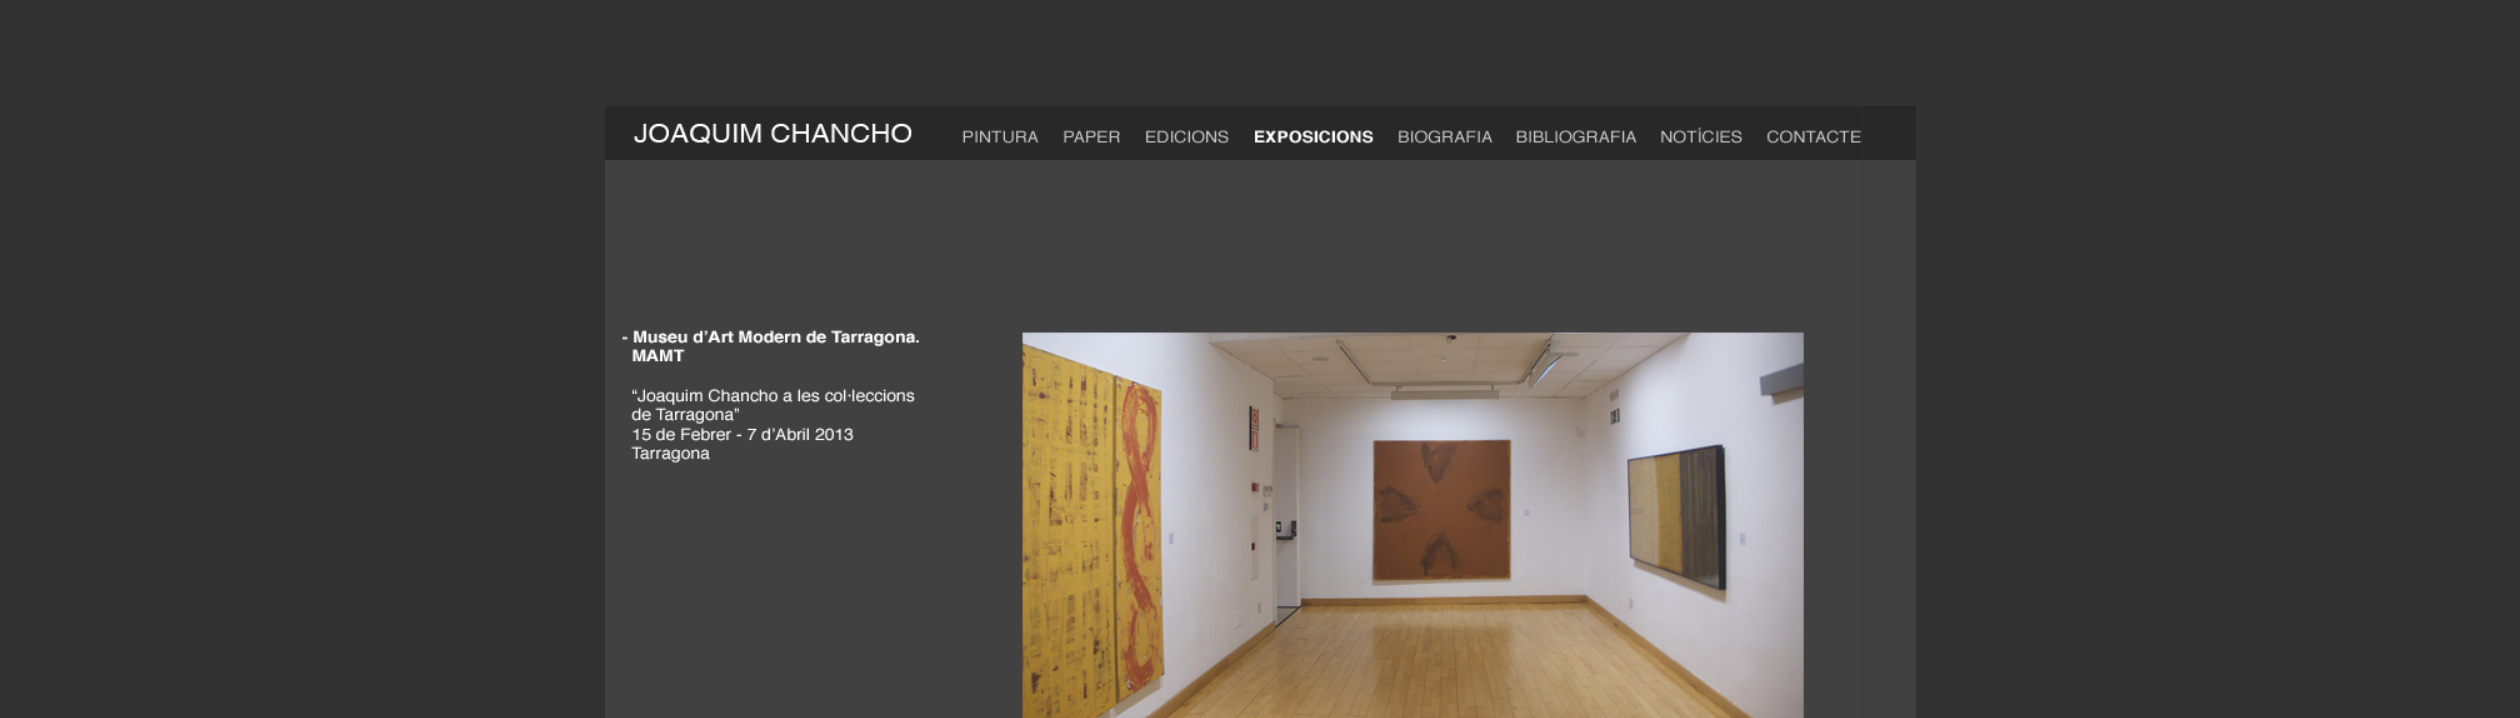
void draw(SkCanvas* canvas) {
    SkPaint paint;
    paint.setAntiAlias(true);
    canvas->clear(0xFF323232);
    canvas->drawImageRect(SkImages::DeferredFromEncodedData(SkData::MakeFromFileName("img1.png")), SkRect::MakeXYWH(605, 106, 355, 54), SkSamplingOptions());
    canvas->drawImageRect(SkImages::DeferredFromEncodedData(SkData::MakeFromFileName("img2.png")), SkRect::MakeXYWH(960, 106, 903, 54), SkSamplingOptions());
    paint.setColor(0xFF282828);
    canvas->drawRect(SkRect::MakeXYWH(1863, 106, 53, 54), paint);
    canvas->drawImageRect(SkImages::DeferredFromEncodedData(SkData::MakeFromFileName("img3.png")), SkRect::MakeXYWH(605, 160, 355, 558), SkSamplingOptions());
    canvas->drawImageRect(SkImages::DeferredFromEncodedData(SkData::MakeFromFileName("img4.png")), SkRect::MakeXYWH(960, 160, 903, 558), SkSamplingOptions());
    paint.setColor(0xFF414141);
    canvas->drawRect(SkRect::MakeXYWH(1863, 160, 53, 558), paint);
}
